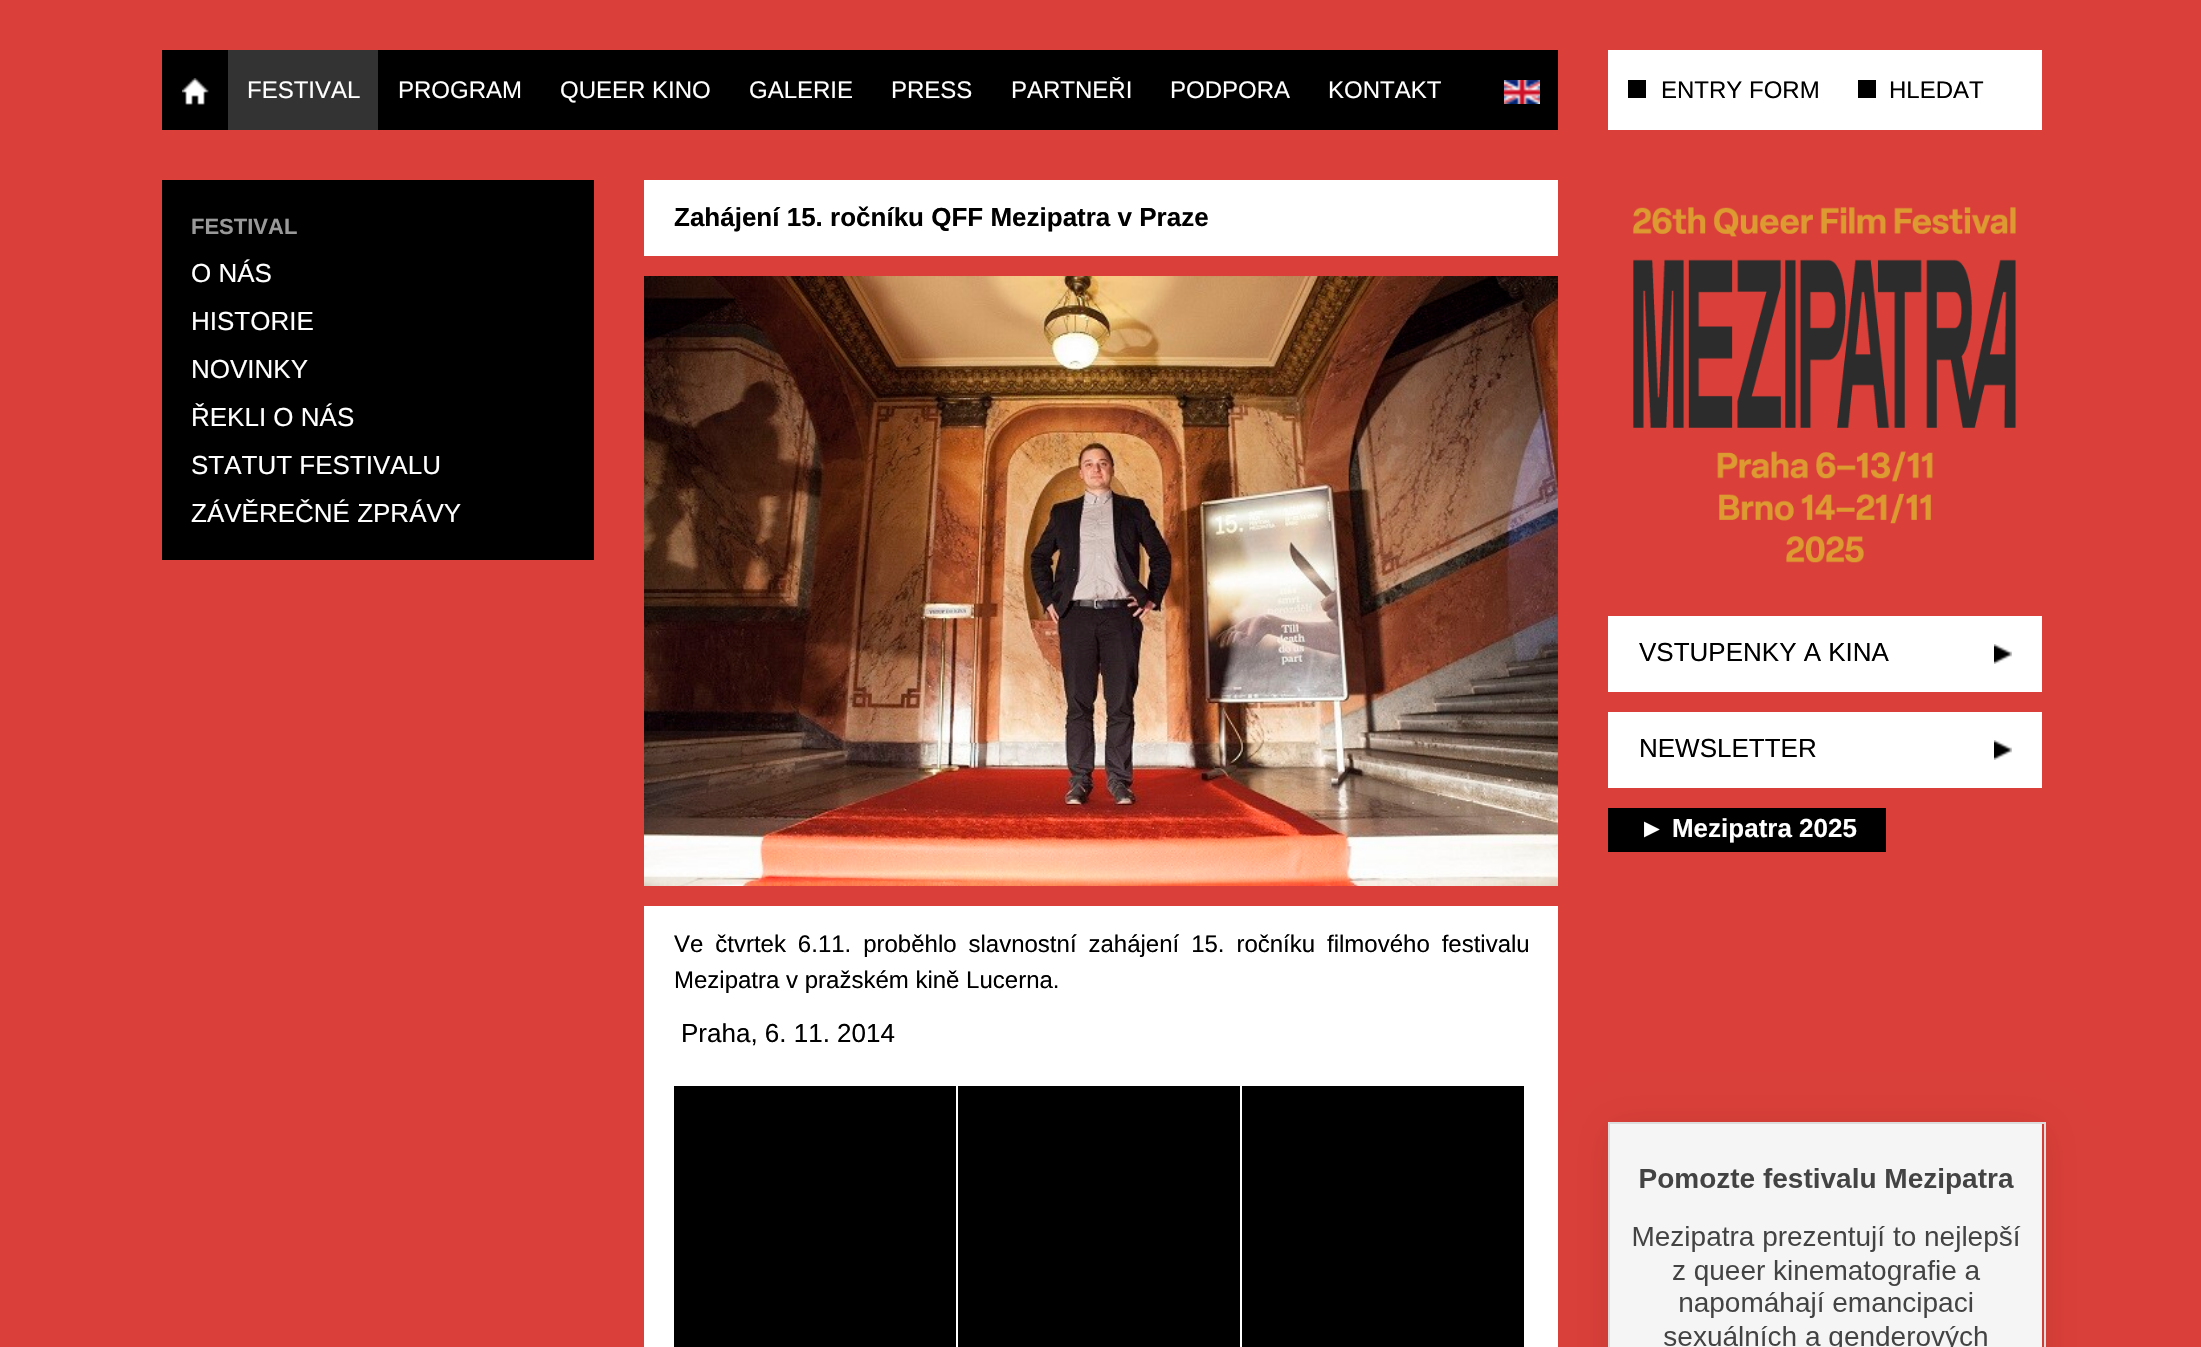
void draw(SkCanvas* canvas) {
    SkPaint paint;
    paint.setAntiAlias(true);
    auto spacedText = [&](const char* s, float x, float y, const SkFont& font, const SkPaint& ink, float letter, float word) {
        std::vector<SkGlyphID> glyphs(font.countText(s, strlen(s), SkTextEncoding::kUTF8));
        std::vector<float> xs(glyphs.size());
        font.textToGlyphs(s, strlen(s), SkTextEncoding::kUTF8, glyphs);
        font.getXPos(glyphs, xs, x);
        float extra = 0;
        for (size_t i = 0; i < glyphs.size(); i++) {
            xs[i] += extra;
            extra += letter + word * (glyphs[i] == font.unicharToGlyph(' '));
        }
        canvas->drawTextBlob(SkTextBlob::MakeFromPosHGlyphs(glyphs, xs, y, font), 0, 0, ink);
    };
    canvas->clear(0xFFDA4039);
    paint.setColor(0xFF000000);
    canvas->drawRect(SkRect::MakeXYWH(162, 50, 1396, 80), paint);
    canvas->drawImageRect(SkImages::DeferredFromEncodedData(SkData::MakeFromFileName("img1.png")), SkRect::MakeXYWH(182, 78, 27, 27), SkSamplingOptions());
    paint.setColor(0xFF333333);
    canvas->drawRect(SkRect::MakeXYWH(228, 50, 150, 80), paint);
    SkFont font1(fontMgr->matchFamilyStyle("Liberation Sans", SkFontStyle::Normal()), 24);
    font1.setSubpixel(true);
    paint.setColor(0xFFFFFFFF);
    canvas->drawString("FESTIVAL", 247, 98, font1, paint);
    canvas->drawString("PROGRAM", 398, 98, font1, paint);
    canvas->drawString("QUEER KINO", 560, 98, font1, paint);
    canvas->drawString("GALERIE", 749, 98, font1, paint);
    canvas->drawString("PRESS", 891, 98, font1, paint);
    canvas->drawString("PARTNEŘI", 1011, 98, font1, paint);
    canvas->drawString("PODPORA", 1170, 98, font1, paint);
    canvas->drawString("KONTAKT", 1328, 98, font1, paint);
    canvas->drawImageRect(SkImages::DeferredFromEncodedData(SkData::MakeFromFileName("img2.png")), SkRect::MakeXYWH(1504, 80, 36, 24), SkSamplingOptions());
    canvas->drawRect(SkRect::MakeXYWH(1608, 50, 434, 80), paint);
    paint.setColor(0xFF000000);
    canvas->drawRect(SkRect::MakeXYWH(1628, 80, 18, 18), paint);
    canvas->drawString("ENTRY FORM", 1661, 98, font1, paint);
    canvas->drawRect(SkRect::MakeXYWH(1858, 80, 18, 18), paint);
    canvas->drawString("HLEDAT", 1889, 98, font1, paint);
    canvas->drawRect(SkRect::MakeXYWH(162, 180, 432, 380), paint);
    SkFont font2(fontMgr->matchFamilyStyle("Liberation Sans", SkFontStyle::Bold()), 22);
    font2.setSubpixel(true);
    paint.setColor(0xFF999999);
    canvas->drawString("FESTIVAL", 191, 234, font2, paint);
    SkFont font3(fontMgr->matchFamilyStyle("Liberation Sans", SkFontStyle::Normal()), 26);
    font3.setSubpixel(true);
    paint.setColor(0xFFFFFFFF);
    canvas->drawString("O NÁS", 191, 282, font3, paint);
    canvas->drawString("HISTORIE", 191, 330, font3, paint);
    canvas->drawString("NOVINKY", 191, 378, font3, paint);
    canvas->drawString("ŘEKLI O NÁS", 191, 426, font3, paint);
    canvas->drawString("STATUT FESTIVALU", 191, 474, font3, paint);
    canvas->drawString("ZÁVĚREČNÉ ZPRÁVY", 191, 522, font3, paint);
    canvas->drawRect(SkRect::MakeXYWH(644, 180, 914, 76), paint);
    SkFont font4(fontMgr->matchFamilyStyle("Liberation Sans", SkFontStyle::Bold()), 26);
    font4.setSubpixel(true);
    paint.setColor(0xFF000000);
    canvas->drawString("Zahájení 15. ročníku QFF Mezipatra v Praze", 674, 226, font4, paint);
    canvas->drawImageRect(SkImages::DeferredFromEncodedData(SkData::MakeFromFileName("img3.png")), SkRect::MakeXYWH(644, 276, 914, 610), SkSamplingOptions());
    paint.setColor(0x17000000);
    paint.setMaskFilter(SkMaskFilter::MakeBlur(kNormal_SkBlurStyle, 18));
    canvas->drawRect(SkRect::MakeXYWH(1608, 1126, 438, 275), paint);
    paint.setMaskFilter(nullptr);
    paint.setColor(0xFFFFFFFF);
    canvas->drawRect(SkRect::MakeXYWH(644, 906, 914, 441), paint);
    paint.setColor(0xFF000000);
    spacedText("Ve čtvrtek 6.11. proběhlo slavnostní zahájení 15. ročníku filmového festivalu", 674, 952, font1, paint, 0, 5.25f);
    canvas->drawString("Mezipatra v pražském kině Lucerna.", 674, 988, font1, paint);
    canvas->drawString("Praha, 6. 11. 2014", 681, 1042, font3, paint);
    canvas->drawRect(SkRect::MakeXYWH(674, 1086, 282, 261), paint);
    canvas->drawRect(SkRect::MakeXYWH(958, 1086, 282, 261), paint);
    canvas->drawRect(SkRect::MakeXYWH(1242, 1086, 282, 261), paint);
    canvas->drawImageRect(SkImages::DeferredFromEncodedData(SkData::MakeFromFileName("img4.png")), SkRect::MakeXYWH(1633, 207, 383, 356), SkSamplingOptions());
    paint.setColor(0xFFFFFFFF);
    canvas->drawRect(SkRect::MakeXYWH(1608, 616, 434, 76), paint);
    paint.setColor(0xFF000000);
    canvas->drawString("VSTUPENKY A KINA", 1639, 661, font3, paint);
    canvas->drawImageRect(SkImages::DeferredFromEncodedData(SkData::MakeFromFileName("img5.png")), SkRect::MakeXYWH(1994, 644, 18, 20), SkSamplingOptions());
    paint.setColor(0xFFFFFFFF);
    canvas->drawRect(SkRect::MakeXYWH(1608, 712, 434, 76), paint);
    paint.setColor(0xFF000000);
    canvas->drawString("NEWSLETTER", 1639, 757, font3, paint);
    canvas->drawImageRect(SkImages::DeferredFromEncodedData(SkData::MakeFromFileName("img5.png")), SkRect::MakeXYWH(1994, 740, 18, 20), SkSamplingOptions());
    canvas->drawRect(SkRect::MakeXYWH(1608, 808, 278, 44), paint);
    paint.setColor(0xFFFFFFFF);
    canvas->drawString("► Mezipatra 2025", 1639, 837, font4, paint);
    paint.setStyle(SkPaint::kStroke_Style);
    paint.setStrokeWidth(2);
    paint.setColor(0xFFDCDCDC);
    canvas->drawRect(SkRect::MakeXYWH(1609, 1123, 436, 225), paint);
    canvas->drawImageRect(SkImages::DeferredFromEncodedData(SkData::MakeFromFileName("img6.png")), SkRect::MakeXYWH(1610, 1124, 432, 223), SkSamplingOptions());
}
